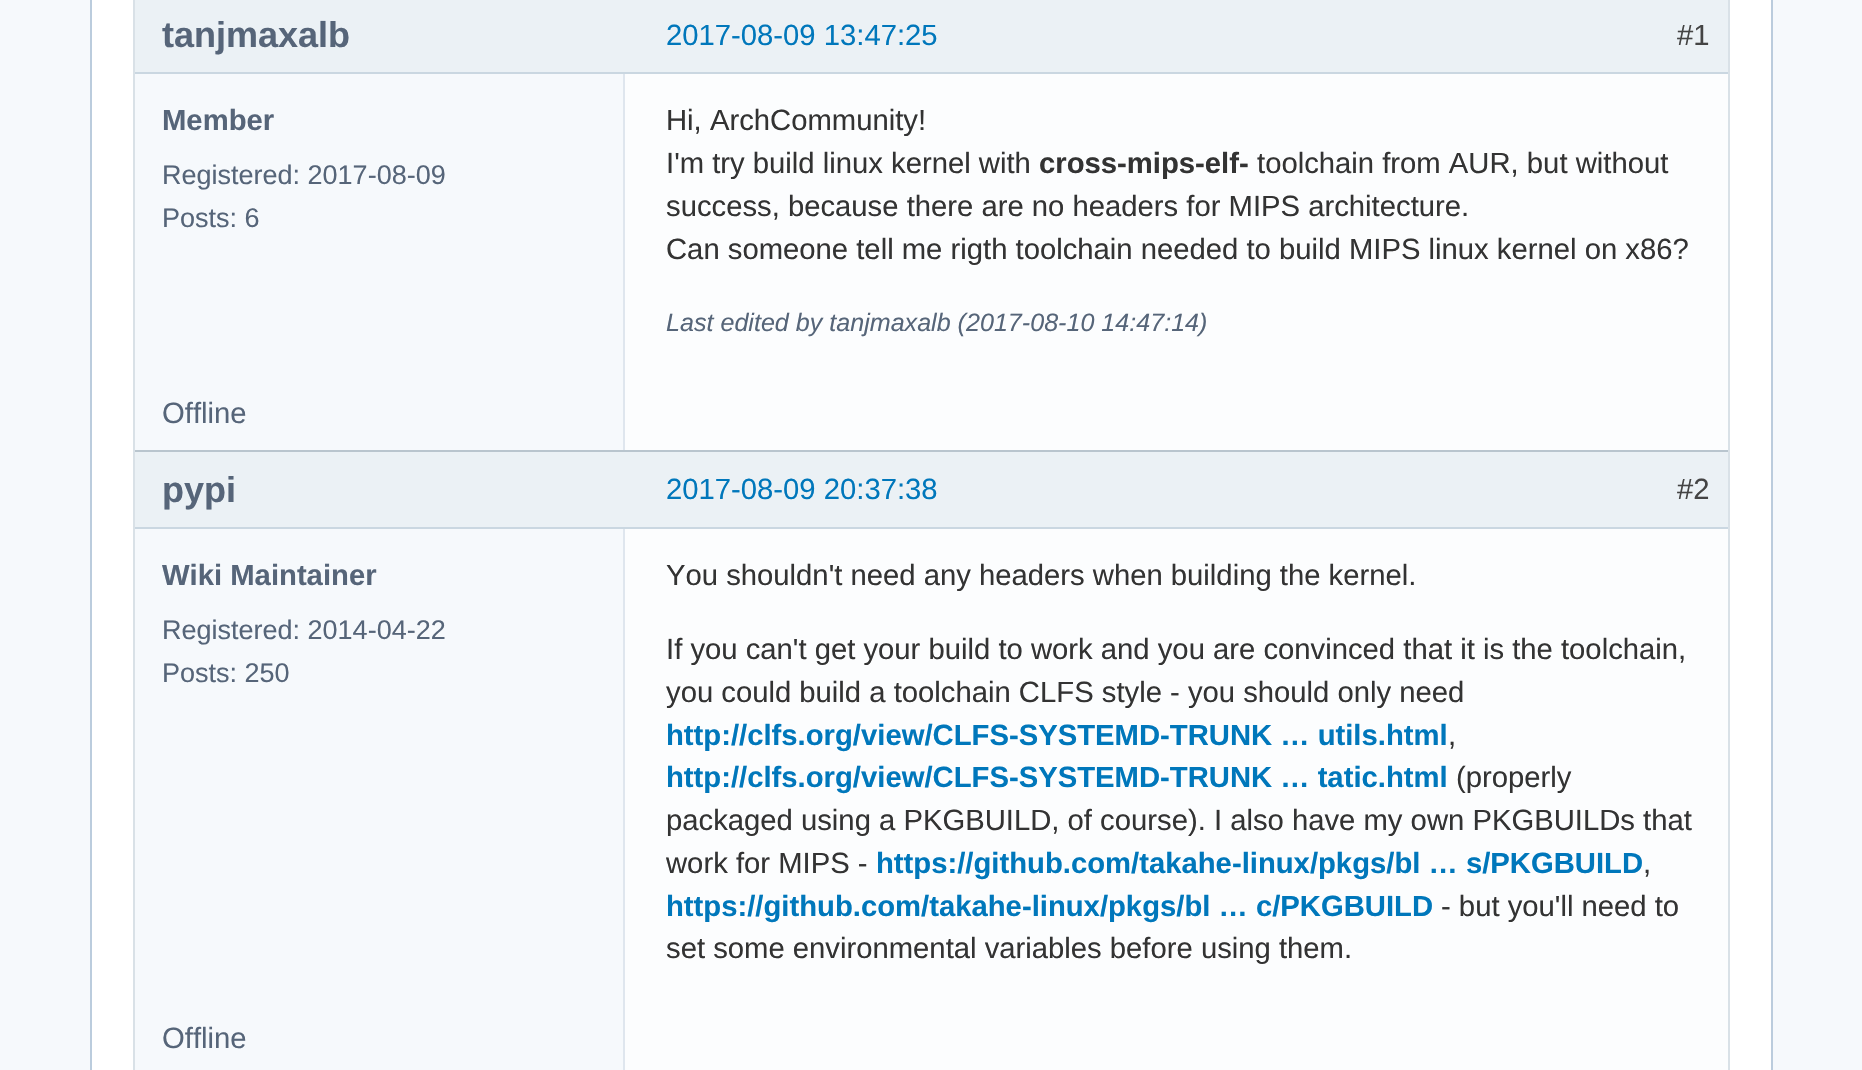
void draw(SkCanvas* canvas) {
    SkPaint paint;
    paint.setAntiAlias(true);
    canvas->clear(0xFFF6F9FC);
    paint.setColor(0xFFFFFFFF);
    canvas->drawRect(SkRect::MakeXYWH(91, -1, 1681, 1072), paint);
    paint.setStyle(SkPaint::kStroke_Style);
    paint.setStrokeWidth(2);
    paint.setColor(0xFFBBCCDD);
    canvas->drawRect(SkRect::MakeXYWH(91, -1, 1681, 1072), paint);
    paint.setStyle(SkPaint::kFill_Style);
    paint.setColor(0xFFF6F9FC);
    canvas->drawRect(SkRect::MakeXYWH(135, 74, 488, 376), paint);
    paint.setColor(0xFFD9E1E7);
    canvas->drawRect(SkRect::MakeXYWH(1728, 0, 2, 452), paint);
    canvas->drawRect(SkRect::MakeXYWH(133, 0, 2, 452), paint);
    paint.setColor(0xFFFCFDFE);
    canvas->drawRect(SkRect::MakeXYWH(625, 74, 1103, 376), paint);
    paint.setColor(0xFFDFE6EE);
    canvas->drawRect(SkRect::MakeXYWH(623, 74, 2, 376), paint);
    paint.setColor(0xFFEBF1F5);
    canvas->drawRect(SkRect::MakeXYWH(135, 0, 1593, 72), paint);
    SkFont font1(fontMgr->matchFamilyStyle("Liberation Sans", SkFontStyle::Bold()), 36);
    font1.setSubpixel(true);
    paint.setColor(0xFF566579);
    canvas->drawString("tanjmaxalb", 162, 47, font1, paint);
    SkFont font2(fontMgr->matchFamilyStyle("Liberation Sans", SkFontStyle::Bold()), 29.25f);
    font2.setSubpixel(true);
    canvas->drawString("Member", 162, 130, font2, paint);
    SkFont font3(fontMgr->matchFamilyStyle("Liberation Sans", SkFontStyle::Normal()), 27);
    font3.setSubpixel(true);
    canvas->drawString("Registered: 2017-08-09", 162, 184, font3, paint);
    canvas->drawString("Posts: 6", 162, 227, font3, paint);
    SkFont font4(fontMgr->matchFamilyStyle("Liberation Sans", SkFontStyle::Normal()), 29.25f);
    font4.setSubpixel(true);
    paint.setColor(0xFF333333);
    canvas->drawString("Hi, ArchCommunity!", 666, 130, font4, paint);
    canvas->drawString("I'm try build linux kernel with", 666, 173, font4, paint);
    canvas->drawString("cross-mips-elf-", 1039, 173, font2, paint);
    canvas->drawString("toolchain from AUR, but without", 1257, 173, font4, paint);
    canvas->drawString("success, because there are no headers for MIPS architecture.", 666, 216, font4, paint);
    canvas->drawString("Can someone tell me rigth toolchain needed to build MIPS linux kernel on x86?", 666, 259, font4, paint);
    SkFont font5(fontMgr->matchFamilyStyle("Liberation Sans", SkFontStyle::Italic()), 25.1f);
    font5.setSubpixel(true);
    paint.setColor(0xFF566579);
    canvas->drawString("Last edited by tanjmaxalb (2017-08-10 14:47:14)", 666, 331, font5, paint);
    canvas->drawString("Offline", 162, 423, font4, paint);
    paint.setColor(0xFFCAD7E1);
    canvas->drawRect(SkRect::MakeXYWH(135, 72, 1593, 2), paint);
    paint.setColor(0xFF0077BB);
    canvas->drawString("2017-08-09 13:47:25", 666, 45, font4, paint);
    paint.setColor(0xFF444444);
    canvas->drawString("#1", 1677, 45, font4, paint);
    paint.setColor(0xFFF6F9FC);
    canvas->drawRect(SkRect::MakeXYWH(135, 529, 488, 541), paint);
    paint.setColor(0xFFB9C5CE);
    canvas->drawRect(SkRect::MakeXYWH(133, 450, 1597, 2), paint);
    paint.setColor(0xFFD9E1E7);
    canvas->drawRect(SkRect::MakeXYWH(1728, 450, 2, 620), paint);
    canvas->drawRect(SkRect::MakeXYWH(133, 450, 2, 620), paint);
    paint.setColor(0xFFFCFDFE);
    canvas->drawRect(SkRect::MakeXYWH(625, 529, 1103, 541), paint);
    paint.setColor(0xFFDFE6EE);
    canvas->drawRect(SkRect::MakeXYWH(623, 529, 2, 541), paint);
    paint.setColor(0xFFEBF1F5);
    canvas->drawRect(SkRect::MakeXYWH(135, 452, 1593, 75), paint);
    paint.setColor(0xFF566579);
    canvas->drawString("pypi", 162, 502, font1, paint);
    canvas->drawString("Wiki Maintainer", 162, 585, font2, paint);
    canvas->drawString("Registered: 2014-04-22", 162, 639, font3, paint);
    canvas->drawString("Posts: 250", 162, 682, font3, paint);
    paint.setColor(0xFF333333);
    canvas->drawString("You shouldn't need any headers when building the kernel.", 666, 585, font4, paint);
    canvas->drawString("If you can't get your build to work and you are convinced that it is the toolchain,", 666, 659, font4, paint);
    canvas->drawString("you could build a toolchain CLFS style - you should only need", 666, 702, font4, paint);
    paint.setColor(0xFF0077BB);
    canvas->drawString("http://clfs.org/view/CLFS-SYSTEMD-TRUNK … utils.html", 666, 745, font2, paint);
    paint.setColor(0xFF333333);
    canvas->drawString(",", 1448, 745, font4, paint);
    paint.setColor(0xFF0077BB);
    canvas->drawString("http://clfs.org/view/CLFS-SYSTEMD-TRUNK … tatic.html", 666, 787, font2, paint);
    paint.setColor(0xFF333333);
    canvas->drawString("(properly", 1456, 787, font4, paint);
    canvas->drawString("packaged using a PKGBUILD, of course). I also have my own PKGBUILDs that", 666, 830, font4, paint);
    canvas->drawString("work for MIPS -", 666, 873, font4, paint);
    paint.setColor(0xFF0077BB);
    canvas->drawString("https://github.com/takahe-linux/pkgs/bl … s/PKGBUILD", 876, 873, font2, paint);
    paint.setColor(0xFF333333);
    canvas->drawString(",", 1643, 873, font4, paint);
    paint.setColor(0xFF0077BB);
    canvas->drawString("https://github.com/takahe-linux/pkgs/bl … c/PKGBUILD", 666, 916, font2, paint);
    paint.setColor(0xFF333333);
    canvas->drawString("- but you'll need to", 1441, 916, font4, paint);
    canvas->drawString("set some environmental variables before using them.", 666, 958, font4, paint);
    paint.setColor(0xFF566579);
    canvas->drawString("Offline", 162, 1048, font4, paint);
    paint.setColor(0xFFCAD7E1);
    canvas->drawRect(SkRect::MakeXYWH(135, 527, 1593, 2), paint);
    paint.setColor(0xFF0077BB);
    canvas->drawString("2017-08-09 20:37:38", 666, 499, font4, paint);
    paint.setColor(0xFF444444);
    canvas->drawString("#2", 1677, 499, font4, paint);
}
